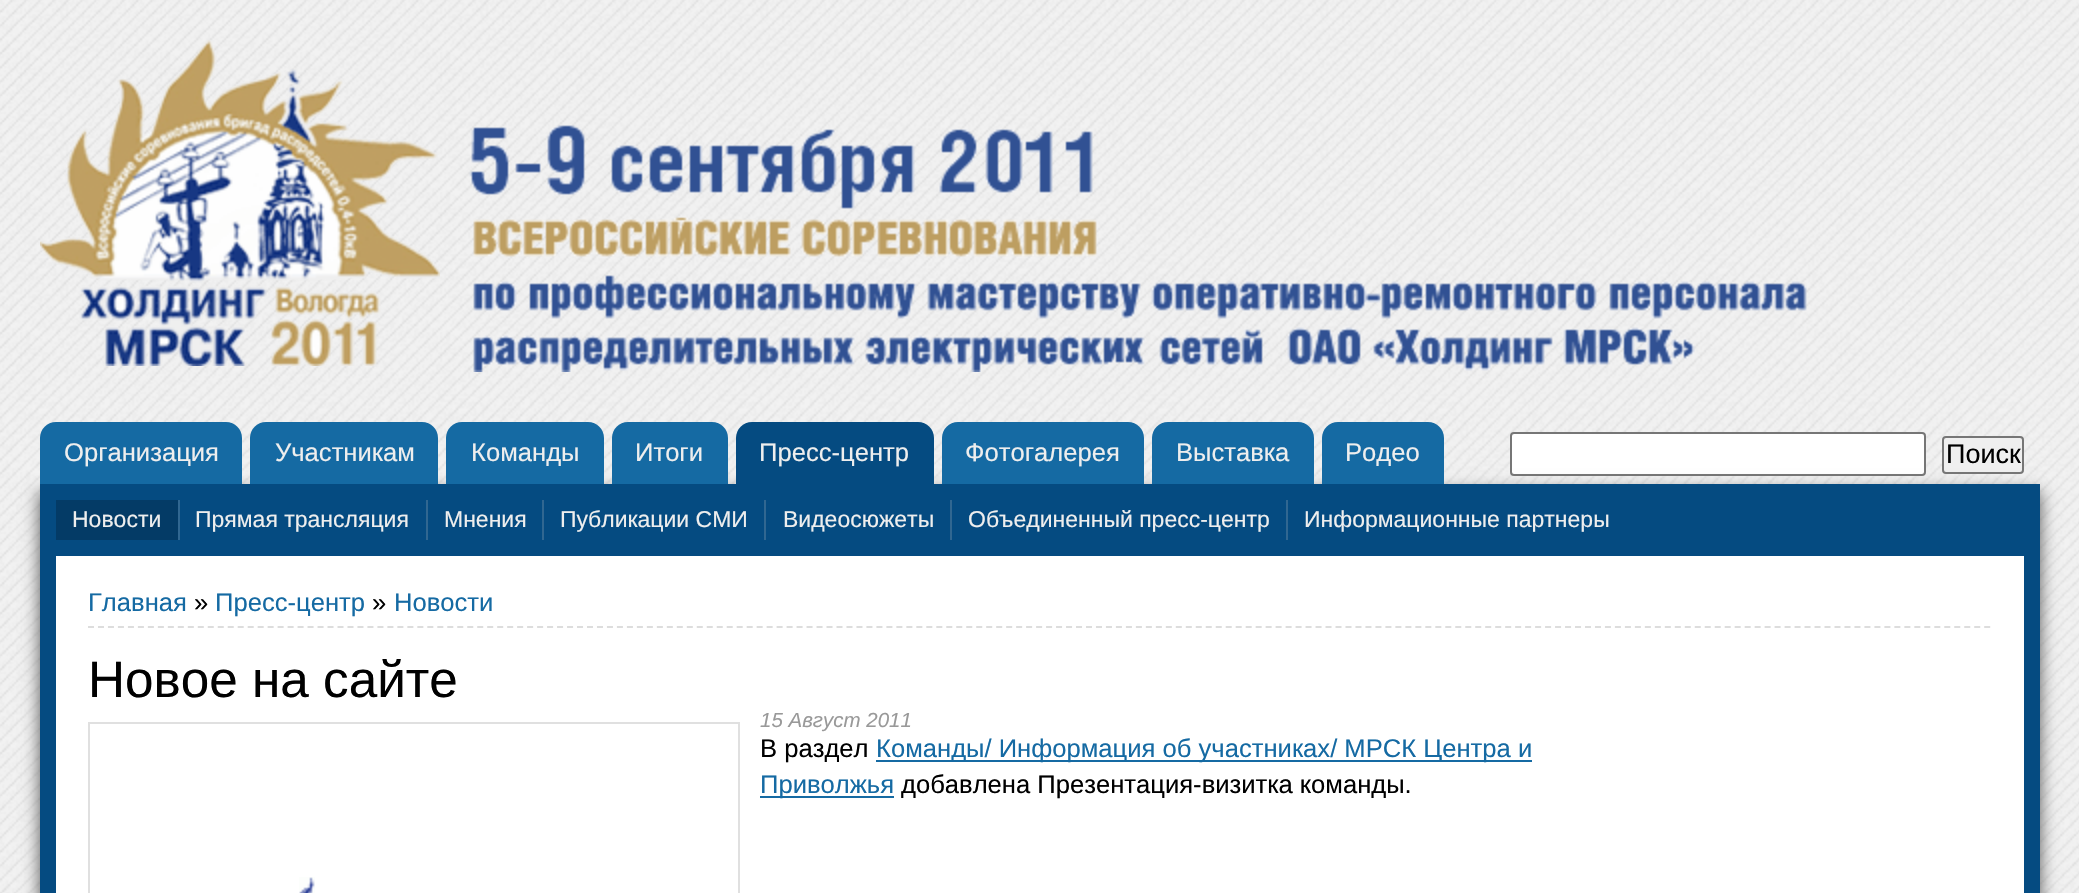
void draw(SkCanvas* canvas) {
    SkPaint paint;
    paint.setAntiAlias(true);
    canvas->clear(0xFFFFFFFF);
    canvas->drawImageRect(SkImages::DeferredFromEncodedData(SkData::MakeFromFileName("img1.png")), SkRect::MakeXYWH(0, 0, 2079, 893), SkSamplingOptions());
    canvas->drawImageRect(SkImages::DeferredFromEncodedData(SkData::MakeFromFileName("img2.png")), SkRect::MakeXYWH(40, 40, 400, 326), SkSamplingOptions());
    canvas->drawImageRect(SkImages::DeferredFromEncodedData(SkData::MakeFromFileName("img3.png")), SkRect::MakeXYWH(469, 125, 1338, 247), SkSamplingOptions());
    paint.setColor(0xFFFFFFFF);
    canvas->drawRoundRect(SkRect::MakeXYWH(1511, 433, 414, 42), 3, 3, paint);
    paint.setStyle(SkPaint::kStroke_Style);
    paint.setStrokeWidth(2);
    paint.setColor(0xFF767676);
    canvas->drawRoundRect(SkRect::MakeXYWH(1511, 433, 414, 42), 3, 3, paint);
    paint.setStyle(SkPaint::kFill_Style);
    paint.setColor(0xFFEFEFEF);
    canvas->drawRoundRect(SkRect::MakeXYWH(1943, 437, 80, 36), 3, 3, paint);
    paint.setStyle(SkPaint::kStroke_Style);
    paint.setColor(0xFF767676);
    canvas->drawRoundRect(SkRect::MakeXYWH(1943, 437, 80, 36), 3, 3, paint);
    paint.setStyle(SkPaint::kFill_Style);
    paint.setColor(0xFF555555);
    paint.setMaskFilter(SkMaskFilter::MakeBlur(kNormal_SkBlurStyle, 8));
    canvas->drawRect(SkRect::MakeXYWH(40, 492, 2000, 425), paint);
    paint.setMaskFilter(nullptr);
    paint.setColor(0xFF156AA3);
    canvas->drawPath(SkPathBuilder().moveTo(56, 422).lineTo(226, 422).cubicTo(235, 422, 242, 429, 242, 438).lineTo(242, 484).lineTo(40, 484).lineTo(40, 438).cubicTo(40, 429, 47, 422, 56, 422).close().detach(), paint);
    SkFont font1(fontMgr->matchFamilyStyle("Liberation Sans", SkFontStyle::Normal()), 25.6f);
    font1.setSubpixel(true);
    paint.setColor(0xFFEEEEEE);
    canvas->drawString("Организация", 64, 461, font1, paint);
    paint.setColor(0xFF156AA3);
    canvas->drawPath(SkPathBuilder().moveTo(266, 422).lineTo(422, 422).cubicTo(431, 422, 438, 429, 438, 438).lineTo(438, 484).lineTo(250, 484).lineTo(250, 438).cubicTo(250, 429, 257, 422, 266, 422).close().detach(), paint);
    paint.setColor(0xFFEEEEEE);
    canvas->drawString("Участникам", 275, 461, font1, paint);
    paint.setColor(0xFF156AA3);
    canvas->drawPath(SkPathBuilder().moveTo(462, 422).lineTo(588, 422).cubicTo(597, 422, 604, 429, 604, 438).lineTo(604, 484).lineTo(446, 484).lineTo(446, 438).cubicTo(446, 429, 453, 422, 462, 422).close().detach(), paint);
    paint.setColor(0xFFEEEEEE);
    canvas->drawString("Команды", 471, 461, font1, paint);
    paint.setColor(0xFF156AA3);
    canvas->drawPath(SkPathBuilder().moveTo(628, 422).lineTo(712, 422).cubicTo(721, 422, 728, 429, 728, 438).lineTo(728, 484).lineTo(612, 484).lineTo(612, 438).cubicTo(612, 429, 619, 422, 628, 422).close().detach(), paint);
    paint.setColor(0xFFEEEEEE);
    canvas->drawString("Итоги", 635, 461, font1, paint);
    paint.setColor(0xFF054B81);
    canvas->drawPath(SkPathBuilder().moveTo(752, 422).lineTo(918, 422).cubicTo(927, 422, 934, 429, 934, 438).lineTo(934, 484).lineTo(736, 484).lineTo(736, 438).cubicTo(736, 429, 743, 422, 752, 422).close().detach(), paint);
    paint.setColor(0xFFEEEEEE);
    canvas->drawString("Пресс-центр", 759, 461, font1, paint);
    paint.setColor(0xFF156AA3);
    canvas->drawPath(SkPathBuilder().moveTo(958, 422).lineTo(1128, 422).cubicTo(1137, 422, 1144, 429, 1144, 438).lineTo(1144, 484).lineTo(942, 484).lineTo(942, 438).cubicTo(942, 429, 949, 422, 958, 422).close().detach(), paint);
    paint.setColor(0xFFEEEEEE);
    canvas->drawString("Фотогалерея", 965, 461, font1, paint);
    paint.setColor(0xFF156AA3);
    canvas->drawPath(SkPathBuilder().moveTo(1168, 422).lineTo(1298, 422).cubicTo(1307, 422, 1314, 429, 1314, 438).lineTo(1314, 484).lineTo(1152, 484).lineTo(1152, 438).cubicTo(1152, 429, 1159, 422, 1168, 422).close().detach(), paint);
    paint.setColor(0xFFEEEEEE);
    canvas->drawString("Выставка", 1176, 461, font1, paint);
    paint.setColor(0xFF156AA3);
    canvas->drawPath(SkPathBuilder().moveTo(1338, 422).lineTo(1428, 422).cubicTo(1437, 422, 1444, 429, 1444, 438).lineTo(1444, 484).lineTo(1322, 484).lineTo(1322, 438).cubicTo(1322, 429, 1329, 422, 1338, 422).close().detach(), paint);
    paint.setColor(0xFFEEEEEE);
    canvas->drawString("Родео", 1345, 461, font1, paint);
    SkFont font2(fontMgr->matchFamilyStyle("Liberation Sans", SkFontStyle::Normal()), 27);
    font2.setSubpixel(true);
    paint.setColor(0xFF000000);
    canvas->drawString("Поиск", 1946, 463, font2, paint);
    paint.setColor(0xFF054B81);
    canvas->drawRect(SkRect::MakeXYWH(40, 484, 2000, 409), paint);
    paint.setColor(0xFF043B66);
    canvas->drawRect(SkRect::MakeXYWH(56, 500, 122, 40), paint);
    paint.setColor(0xFF316791);
    canvas->drawRect(SkRect::MakeXYWH(178, 500, 2, 40), paint);
    SkFont font3(fontMgr->matchFamilyStyle("Liberation Sans", SkFontStyle::Normal()), 23);
    font3.setSubpixel(true);
    paint.setColor(0xFFEEEEEE);
    canvas->drawString("Новости", 72, 527, font3, paint);
    paint.setColor(0xFF316791);
    canvas->drawRect(SkRect::MakeXYWH(426, 500, 2, 40), paint);
    paint.setColor(0xFFEEEEEE);
    canvas->drawString("Прямая трансляция", 195, 527, font3, paint);
    paint.setColor(0xFF316791);
    canvas->drawRect(SkRect::MakeXYWH(542, 500, 2, 40), paint);
    paint.setColor(0xFFEEEEEE);
    canvas->drawString("Мнения", 444, 527, font3, paint);
    paint.setColor(0xFF316791);
    canvas->drawRect(SkRect::MakeXYWH(764, 500, 2, 40), paint);
    paint.setColor(0xFFEEEEEE);
    canvas->drawString("Публикации СМИ", 560, 527, font3, paint);
    paint.setColor(0xFF316791);
    canvas->drawRect(SkRect::MakeXYWH(950, 500, 2, 40), paint);
    paint.setColor(0xFFEEEEEE);
    canvas->drawString("Видеосюжеты", 783, 527, font3, paint);
    paint.setColor(0xFF316791);
    canvas->drawRect(SkRect::MakeXYWH(1286, 500, 2, 40), paint);
    paint.setColor(0xFFEEEEEE);
    canvas->drawString("Объединенный пресс-центр", 968, 527, font3, paint);
    canvas->drawString("Информационные партнеры", 1304, 527, font3, paint);
    paint.setColor(0xFFFFFFFF);
    canvas->drawRect(SkRect::MakeXYWH(56, 556, 1968, 337), paint);
    paint.setStyle(SkPaint::kStroke_Style);
    paint.setColor(0xFFDDDDDD);
    paint.setPathEffect(SkDashPathEffect::Make({{6, 3.98f}}, 0));
    canvas->drawPath(SkPathBuilder().moveTo(88, 627).lineTo(1992, 627).detach(), paint);
    paint.setPathEffect(nullptr);
    paint.setStyle(SkPaint::kFill_Style);
    paint.setColor(0xFF156AA3);
    canvas->drawString("Главная", 88, 611, font1, paint);
    paint.setColor(0xFF000000);
    canvas->drawString("»", 194, 611, font1, paint);
    paint.setColor(0xFF156AA3);
    canvas->drawString("Пресс-центр", 215, 611, font1, paint);
    paint.setColor(0xFF000000);
    canvas->drawString("»", 372, 611, font1, paint);
    paint.setColor(0xFF156AA3);
    canvas->drawString("Новости", 394, 611, font1, paint);
    SkFont font4(fontMgr->matchFamilyStyle("Liberation Sans", SkFontStyle::Normal()), 51.25f);
    font4.setSubpixel(true);
    paint.setColor(0xFF000000);
    canvas->drawString("Новое на сайте", 88, 697, font4, paint);
    paint.setStyle(SkPaint::kStroke_Style);
    paint.setColor(0xFFE0E0E0);
    canvas->drawRect(SkRect::MakeXYWH(89, 723, 650, 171), paint);
    canvas->drawImageRect(SkImages::DeferredFromEncodedData(SkData::MakeFromFileName("img4.png")), SkRect::MakeXYWH(299, 877, 16, 16), SkSamplingOptions());
    SkFont font5(fontMgr->matchFamilyStyle("Liberation Sans", SkFontStyle::Italic()), 20.5f);
    font5.setSubpixel(true);
    paint.setStyle(SkPaint::kFill_Style);
    paint.setColor(0xFF999999);
    canvas->drawString("15 Август 2011", 760, 727, font5, paint);
    paint.setColor(0xFF000000);
    canvas->drawString("В раздел", 760, 757, font1, paint);
    paint.setColor(0xFF156AA3);
    canvas->drawRect(SkRect::MakeXYWH(876, 760, 656, 2), paint);
    canvas->drawString("Команды/ Информация об участниках/ МРСК Центра и", 876, 757, font1, paint);
    canvas->drawRect(SkRect::MakeXYWH(760, 796, 134, 2), paint);
    canvas->drawString("Приволжья", 760, 793, font1, paint);
    paint.setColor(0xFF000000);
    canvas->drawString("добавлена Презентация-визитка команды.", 901, 793, font1, paint);
}
